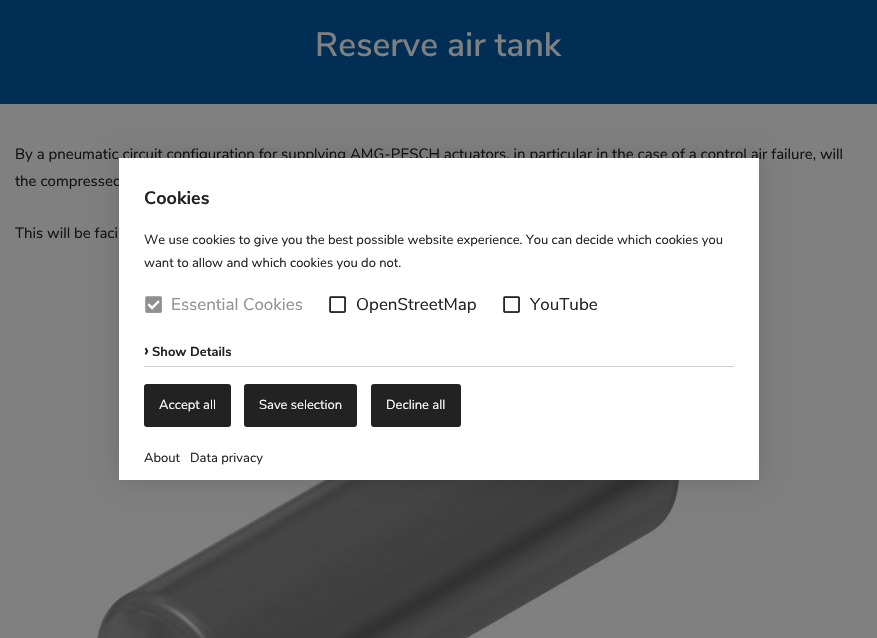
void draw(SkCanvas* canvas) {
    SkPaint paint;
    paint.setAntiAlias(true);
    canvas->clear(0xFF808080);
    paint.setColor(0xFF002E55);
    canvas->drawRect(SkRect::MakeXYWH(0, 0, 877, 104), paint);
    SkFont font1(fontMgr->matchFamilyStyle("Nunito Sans", SkFontStyle(600, SkFontStyle::kNormal_Width, SkFontStyle::kUpright_Slant)), 33.75f);
    font1.setSubpixel(true);
    paint.setColor(0xFF808080);
    canvas->drawString("Reserve air tank", 315, 56, font1, paint);
    SkFont font2(fontMgr->matchFamilyStyle("Nunito Sans", SkFontStyle::Normal()), 15);
    font2.setSubpixel(true);
    paint.setColor(0xFF111111);
    canvas->drawString("By a pneumatic circuit configuration for supplying AMG-PESCH actuators, in particular in the case of a control air failure, will", 15, 159, font2, paint);
    canvas->drawString("the compressed", 15, 186, font2, paint);
    canvas->drawString("This will be faci", 15, 238, font2, paint);
    canvas->drawImageRect(SkImages::DeferredFromEncodedData(SkData::MakeFromFileName("img1.png")), SkRect::MakeXYWH(96, 341, 585, 297), SkSamplingOptions());
    paint.setColor(0x26000000);
    paint.setMaskFilter(SkMaskFilter::MakeBlur(kNormal_SkBlurStyle, 12.5f));
    canvas->drawRect(SkRect::MakeXYWH(119, 158, 640, 322), paint);
    paint.setMaskFilter(nullptr);
    paint.setColor(0xFFFFFFFF);
    canvas->drawRect(SkRect::MakeXYWH(119, 158, 640, 322), paint);
    SkFont font3(fontMgr->matchFamilyStyle("Nunito Sans", SkFontStyle::Bold()), 18);
    font3.setSubpixel(true);
    paint.setColor(0xFF222222);
    canvas->drawString("Cookies", 144, 204, font3, paint);
    SkFont font4(fontMgr->matchFamilyStyle("Nunito Sans", SkFontStyle::Normal()), 13);
    font4.setSubpixel(true);
    canvas->drawString("We use cookies to give you the best possible website experience. You can decide which cookies you", 144, 244, font4, paint);
    canvas->drawString("want to allow and which cookies you do not.", 144, 267, font4, paint);
    canvas->drawImageRect(SkImages::DeferredFromEncodedData(SkData::MakeFromFileName("img2.png")), SkRect::MakeXYWH(145, 296, 17, 17), SkSamplingOptions());
    SkFont font5(fontMgr->matchFamilyStyle("Nunito Sans", SkFontStyle::Normal()), 17);
    font5.setSubpixel(true);
    paint.setColor(0xFF919191);
    canvas->drawString("Essential Cookies", 171, 310, font5, paint);
    canvas->drawImageRect(SkImages::DeferredFromEncodedData(SkData::MakeFromFileName("img3.png")), SkRect::MakeXYWH(329, 296, 17, 17), SkSamplingOptions());
    paint.setColor(0xFF222222);
    canvas->drawString("OpenStreetMap", 356, 310, font5, paint);
    canvas->drawImageRect(SkImages::DeferredFromEncodedData(SkData::MakeFromFileName("img3.png")), SkRect::MakeXYWH(503, 296, 17, 17), SkSamplingOptions());
    canvas->drawString("YouTube", 530, 310, font5, paint);
    canvas->drawString("›", 144, 356, font3, paint);
    SkFont font6(fontMgr->matchFamilyStyle("Nunito Sans", SkFontStyle::Bold()), 13);
    font6.setSubpixel(true);
    canvas->drawString("Show Details", 152, 356, font6, paint);
    paint.setColor(0xFFCCCCCC);
    canvas->drawRect(SkRect::MakeXYWH(144, 366, 590, 1), paint);
    paint.setColor(0xFF222222);
    canvas->drawRoundRect(SkRect::MakeXYWH(144, 384, 87, 43), 3, 3, paint);
    paint.setColor(0xFFFFFFFF);
    canvas->drawString("Accept all", 159, 409, font4, paint);
    paint.setColor(0xFF222222);
    canvas->drawRoundRect(SkRect::MakeXYWH(244, 384, 113, 43), 3, 3, paint);
    paint.setColor(0xFFFFFFFF);
    canvas->drawString("Save selection", 259, 409, font4, paint);
    paint.setColor(0xFF222222);
    canvas->drawRoundRect(SkRect::MakeXYWH(371, 384, 90, 43), 3, 3, paint);
    paint.setColor(0xFFFFFFFF);
    canvas->drawString("Decline all", 386, 409, font4, paint);
    paint.setColor(0xFF222222);
    canvas->drawString("About", 144, 462, font4, paint);
    canvas->drawString("Data privacy", 190, 462, font4, paint);
}
